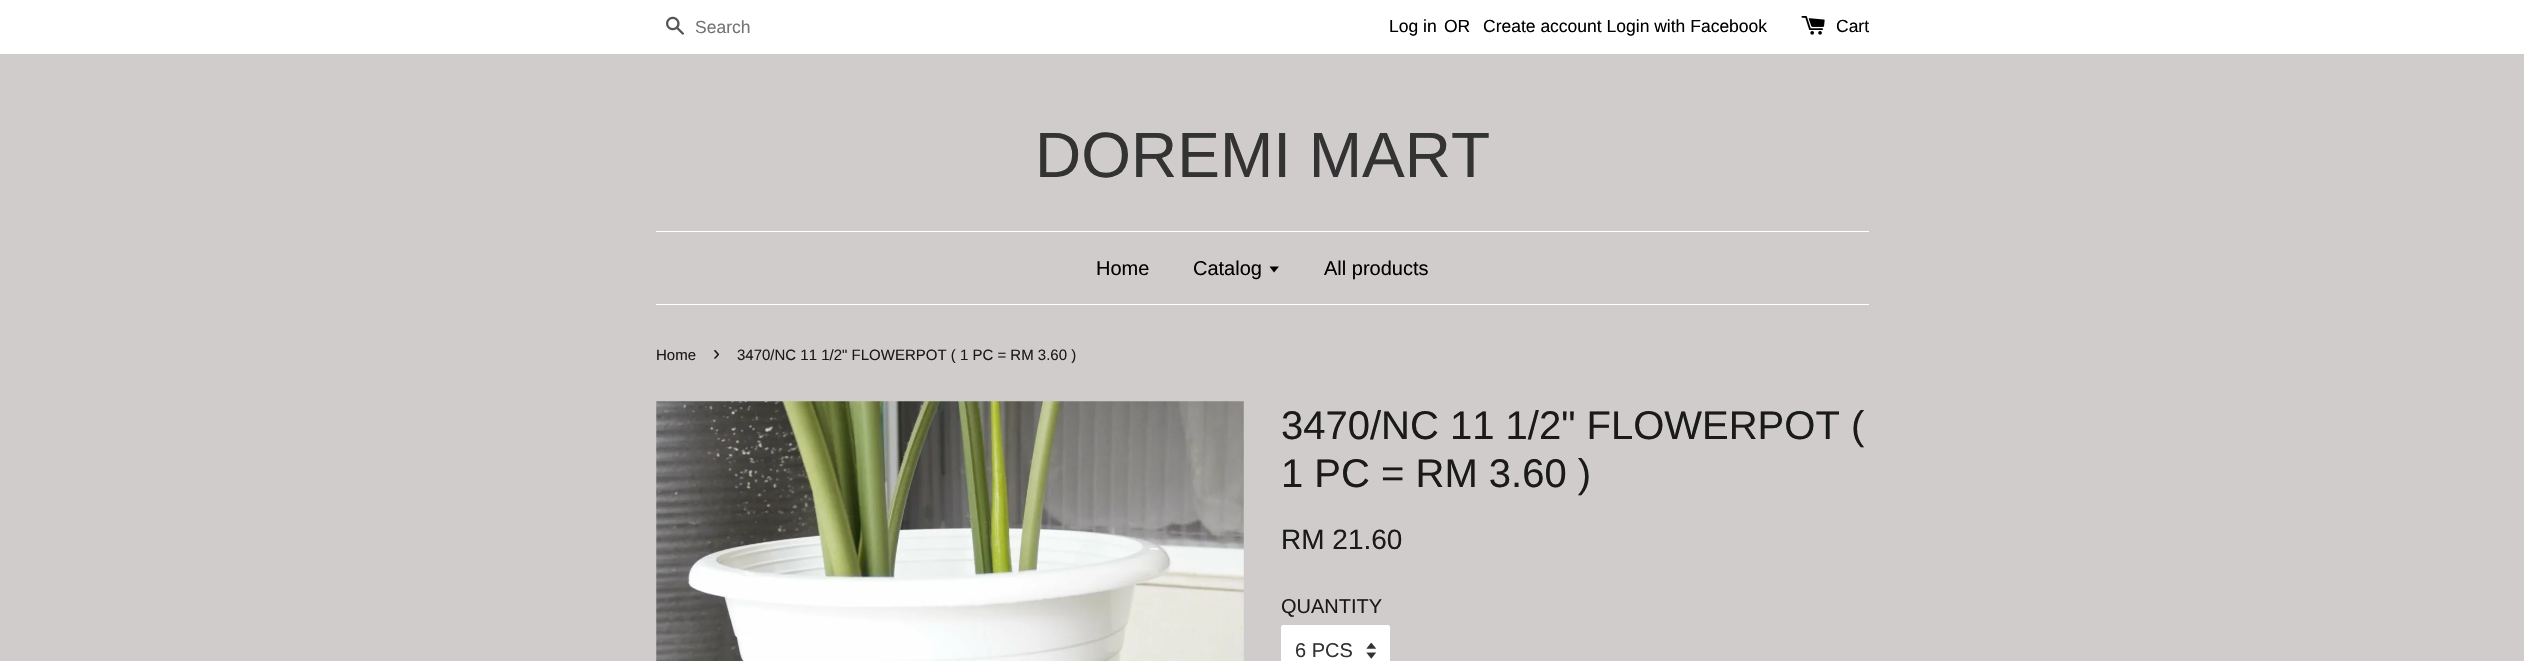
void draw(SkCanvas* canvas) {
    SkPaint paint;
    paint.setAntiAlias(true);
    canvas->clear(0xFFD1CCCC);
    paint.setColor(0xFFFFFFFF);
    canvas->drawRect(SkRect::MakeXYWH(0, 0, 2524, 54), paint);
    canvas->drawImageRect(SkImages::DeferredFromEncodedData(SkData::MakeFromFileName("img1.png")), SkRect::MakeXYWH(666, 16, 18, 19), SkSamplingOptions());
    SkFont font1(fontMgr->matchFamilyStyle("Liberation Sans", SkFontStyle::Normal()), 17.5f);
    font1.setSubpixel(true);
    paint.setColor(0xFF757575);
    canvas->drawString("Search", 695, 33, font1, paint);
    paint.setColor(0xFF000000);
    canvas->drawString("Log in", 1389, 32, font1, paint);
    canvas->drawString("OR", 1444, 32, font1, paint);
    canvas->drawString("Create account Login with Facebook", 1483, 32, font1, paint);
    canvas->drawImageRect(SkImages::DeferredFromEncodedData(SkData::MakeFromFileName("img2.png")), SkRect::MakeXYWH(1801, 16, 24, 19), SkSamplingOptions());
    canvas->drawString("Cart", 1836, 32, font1, paint);
    SkFont font2(fontMgr->matchFamilyStyle("Liberation Sans", SkFontStyle::Normal()), 64);
    font2.setSubpixel(true);
    paint.setColor(0xFF333333);
    canvas->drawString("DOREMI MART", 1035, 177, font2, paint);
    paint.setColor(0xFFFFFFFF);
    canvas->drawRect(SkRect::MakeXYWH(656, 231, 1213, 1), paint);
    canvas->drawRect(SkRect::MakeXYWH(656, 304, 1213, 1), paint);
    SkFont font3(fontMgr->matchFamilyStyle("Liberation Sans", SkFontStyle::Normal()), 20);
    font3.setSubpixel(true);
    paint.setColor(0xFF000000);
    canvas->drawString("Home", 1096, 275, font3, paint);
    canvas->drawString("Catalog", 1193, 275, font3, paint);
    canvas->drawPath(SkPathBuilder().moveTo(1269.5f, 266.5f).lineTo(1274, 272.5f).lineTo(1279, 266.5f).close().detach(), paint);
    canvas->drawString("All products", 1324, 275, font3, paint);
    SkFont font4(fontMgr->matchFamilyStyle("Liberation Sans", SkFontStyle::Normal()), 15);
    font4.setSubpixel(true);
    paint.setColor(0xFF1A1A1A);
    canvas->drawString("Home", 656, 360, font4, paint);
    SkFont font5(fontMgr->matchFamilyStyle("Liberation Sans", SkFontStyle::Normal()), 21);
    font5.setSubpixel(true);
    canvas->drawString("›", 713, 360, font5, paint);
    canvas->drawString("3470/NC 11 1/2\" FLOWERPOT ( 1 PC = RM 3.60 )", 737, 360, font4, paint);
    canvas->drawImageRect(SkImages::DeferredFromEncodedData(SkData::MakeFromFileName("img3.png")), SkRect::MakeXYWH(656, 401, 588, 260), SkSamplingOptions());
    SkFont font6(fontMgr->matchFamilyStyle("Liberation Sans", SkFontStyle::Normal()), 40);
    font6.setSubpixel(true);
    canvas->drawString("3470/NC 11 1/2\" FLOWERPOT (", 1281, 439, font6, paint);
    canvas->drawString("1 PC = RM 3.60 )", 1281, 487, font6, paint);
    SkFont font7(fontMgr->matchFamilyStyle("Liberation Sans", SkFontStyle::Normal()), 28);
    font7.setSubpixel(true);
    canvas->drawString("RM 21.60", 1281, 549, font7, paint);
    canvas->drawString("QUANTITY", 1281, 613, font3, paint);
    paint.setColor(0xFFFFFFFF);
    canvas->drawRoundRect(SkRect::MakeXYWH(1281, 625, 109, 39), 2.5f, 2.5f, paint);
    canvas->drawImageRect(SkImages::DeferredFromEncodedData(SkData::MakeFromFileName("img4.png")), SkRect::MakeXYWH(1366, 643, 10, 16), SkSamplingOptions());
    paint.setStyle(SkPaint::kStroke_Style);
    paint.setStrokeWidth(1);
    canvas->drawRoundRect(SkRect::MakeXYWH(1281.5f, 625.5f, 108, 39), 2, 2, paint);
    paint.setStyle(SkPaint::kFill_Style);
    paint.setColor(0xFF333333);
    canvas->drawString("6 PCS", 1295, 657, font3, paint);
}
